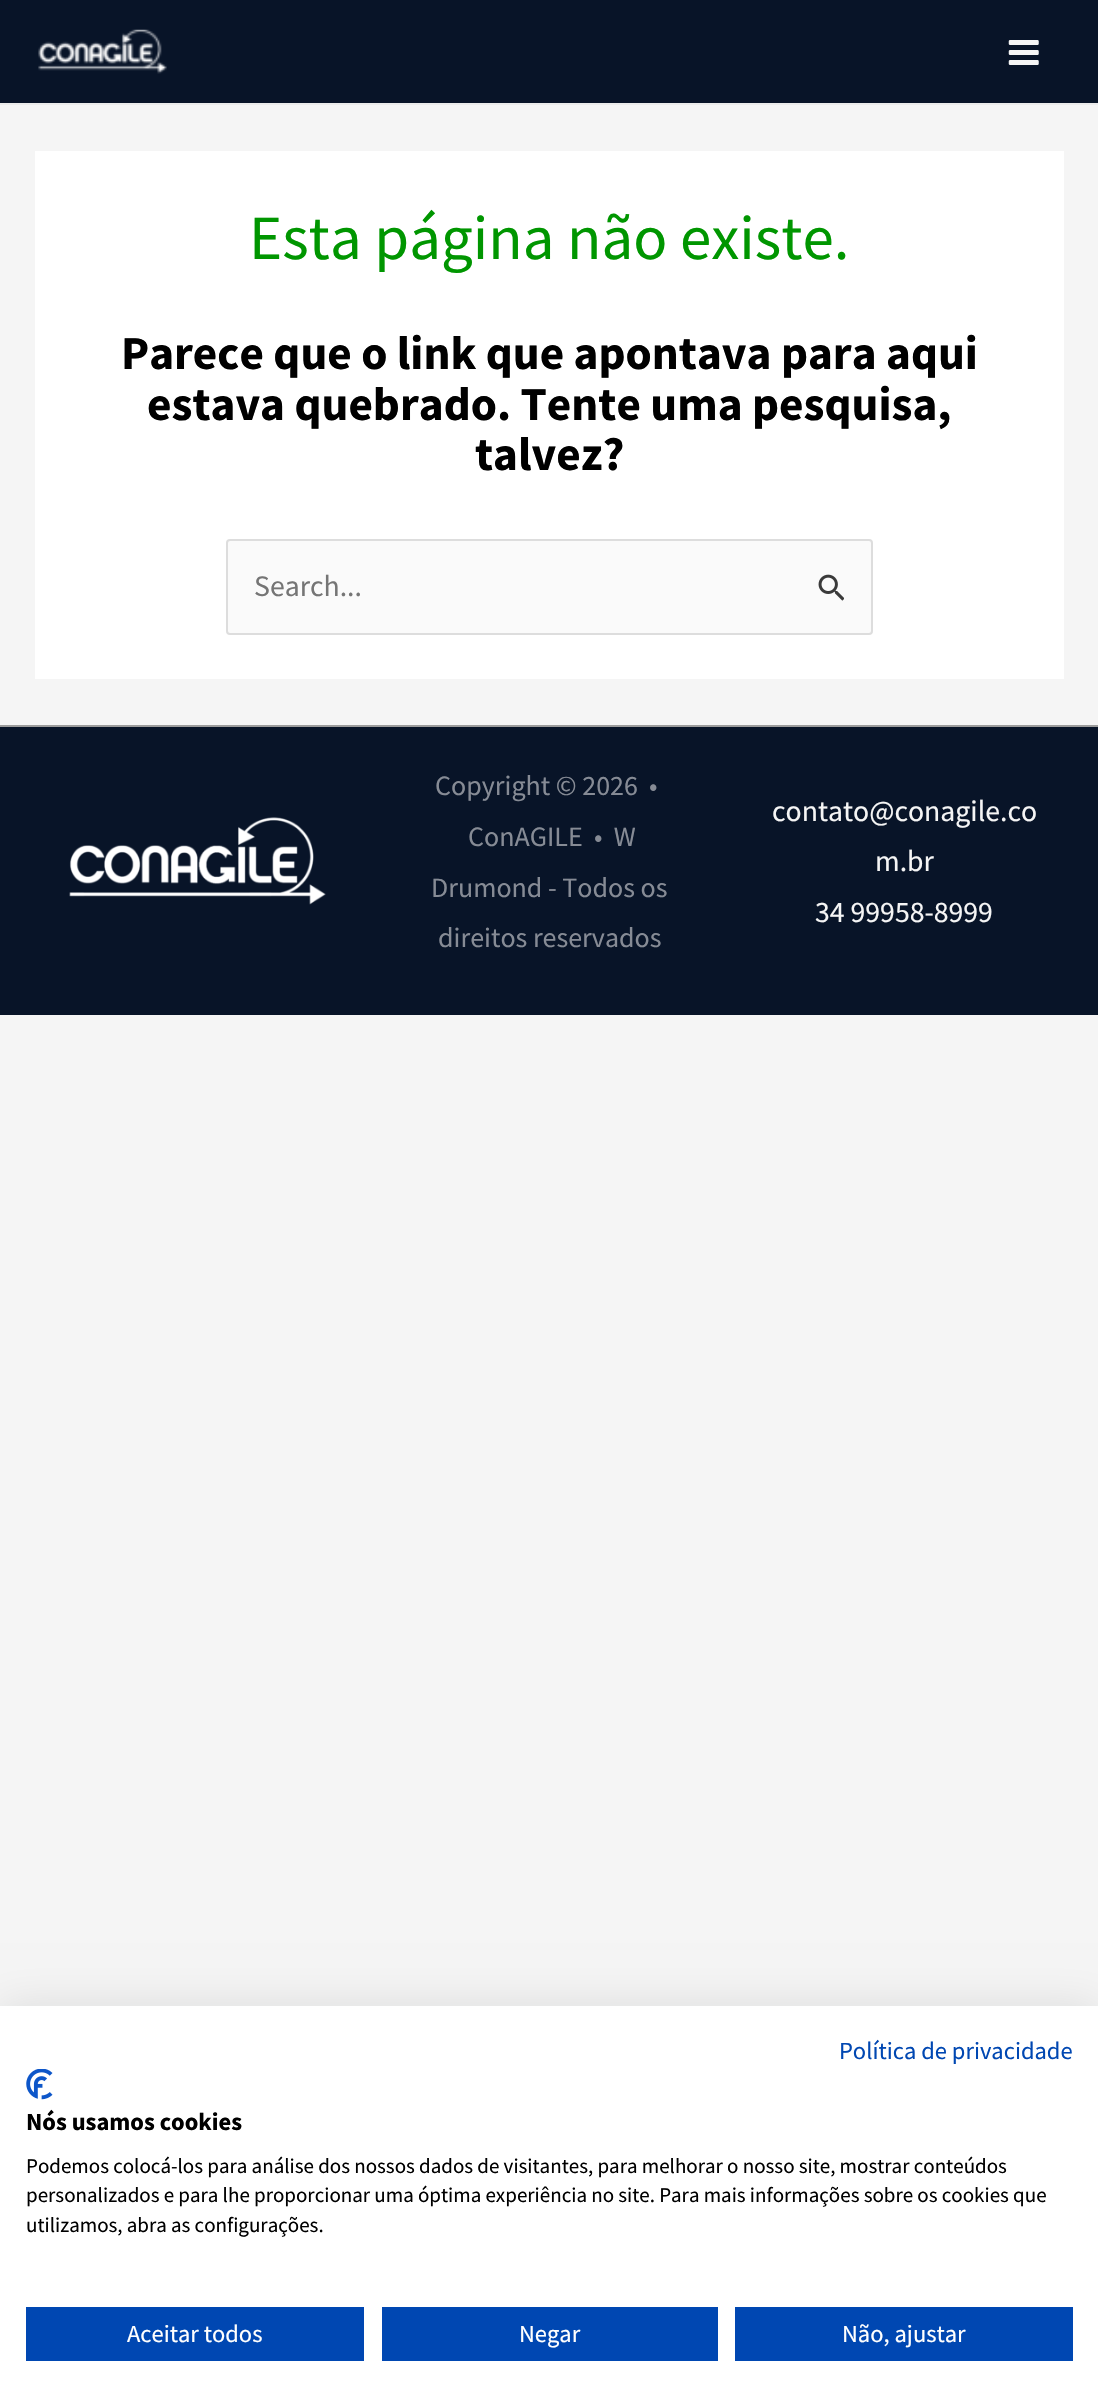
void draw(SkCanvas* canvas) {
    SkPaint paint;
    paint.setAntiAlias(true);
    canvas->clear(0xFFF5F5F5);
    paint.setColor(0xFF081428);
    canvas->drawRect(SkRect::MakeXYWH(0, 0, 1098, 103), paint);
    paint.setColor(0xFFEBEBEB);
    canvas->drawRect(SkRect::MakeXYWH(0, 103, 1098, 2), paint);
    canvas->drawImageRect(SkImages::DeferredFromEncodedData(SkData::MakeFromFileName("img1.png")), SkRect::MakeXYWH(38, 29, 129, 45), SkSamplingOptions());
    canvas->drawImageRect(SkImages::DeferredFromEncodedData(SkData::MakeFromFileName("img2.png")), SkRect::MakeXYWH(1008, 40, 31, 25), SkSamplingOptions());
    paint.setColor(0xFFFFFFFF);
    canvas->drawRect(SkRect::MakeXYWH(35, 151, 1029, 528), paint);
    SkFont font1(fontMgr->matchFamilyStyle("Source Sans Pro", SkFontStyle::Normal()), 63);
    font1.setSubpixel(true);
    paint.setColor(0xFF009600);
    canvas->drawString("Esta página não existe.", 249, 259, font1, paint);
    SkFont font2(fontMgr->matchFamilyStyle("Source Sans Pro", SkFontStyle::Bold()), 47.25f);
    font2.setSubpixel(true);
    paint.setColor(0xFF000000);
    canvas->drawString("Parece que o link que apontava para aqui", 121, 369, font2, paint);
    canvas->drawString("estava quebrado. Tente uma pesquisa,", 147, 420, font2, paint);
    canvas->drawString("talvez?", 475, 470, font2, paint);
    paint.setColor(0xFFFAFAFA);
    canvas->drawRoundRect(SkRect::MakeXYWH(227, 540, 645, 94), 3, 3, paint);
    paint.setStyle(SkPaint::kStroke_Style);
    paint.setStrokeWidth(2);
    paint.setColor(0xFFDDDDDD);
    canvas->drawRoundRect(SkRect::MakeXYWH(227, 540, 645, 94), 3, 3, paint);
    SkFont font3(fontMgr->matchFamilyStyle("Source Sans Pro", SkFontStyle::Normal()), 29.75f);
    font3.setSubpixel(true);
    paint.setStyle(SkPaint::kFill_Style);
    paint.setColor(0xFF757575);
    canvas->drawString("Search...", 254, 596, font3, paint);
    canvas->drawImageRect(SkImages::DeferredFromEncodedData(SkData::MakeFromFileName("img3.png")), SkRect::MakeXYWH(818, 574, 26, 27), SkSamplingOptions());
    paint.setColor(0xFF081428);
    canvas->drawRect(SkRect::MakeXYWH(0, 727, 1098, 288), paint);
    paint.setColor(0xFF9C9C9C);
    canvas->drawRect(SkRect::MakeXYWH(0, 725, 1098, 2), paint);
    canvas->drawImageRect(SkImages::DeferredFromEncodedData(SkData::MakeFromFileName("img4.png")), SkRect::MakeXYWH(69, 817, 257, 88), SkSamplingOptions());
    SkFont font4(fontMgr->matchFamilyStyle("Source Sans Pro", SkFontStyle::Normal()), 28);
    font4.setSubpixel(true);
    paint.setColor(0xFF868B95);
    canvas->drawString("Copyright © 2026  •", 435, 795, font4, paint);
    canvas->drawString("ConAGILE  •  W", 468, 846, font4, paint);
    canvas->drawString("Drumond - Todos os", 431, 897, font4, paint);
    canvas->drawString("direitos reservados", 438, 947, font4, paint);
    paint.setColor(0xFFF5F5F5);
    canvas->drawString("contato@conagile.co", 772, 821, font3, paint);
    canvas->drawString("m.br", 875, 871, font3, paint);
    canvas->drawString("34 99958-8999", 815, 922, font3, paint);
    paint.setColor(0x1A000000);
    paint.setMaskFilter(SkMaskFilter::MakeBlur(kNormal_SkBlurStyle, 21));
    canvas->drawRect(SkRect::MakeXYWH(0, 2006, 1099, 402), paint);
    paint.setMaskFilter(nullptr);
    paint.setColor(0xFFFFFFFF);
    canvas->drawRect(SkRect::MakeXYWH(0, 2006, 1098, 402), paint);
    SkFont font5(fontMgr->matchFamilyStyle("Source Sans Pro", SkFontStyle::Normal()), 24.5f);
    font5.setSubpixel(true);
    paint.setColor(0xFF0047B2);
    canvas->drawString("Política de privacidade", 839, 2059, font5, paint);
    canvas->drawImageRect(SkImages::DeferredFromEncodedData(SkData::MakeFromFileName("img5.png")), SkRect::MakeXYWH(26, 2069, 27, 31), SkSamplingOptions());
    SkFont font6(fontMgr->matchFamilyStyle("Source Sans Pro", SkFontStyle::Bold()), 24.5f);
    font6.setSubpixel(true);
    paint.setColor(0xFF000000);
    canvas->drawString("Nós usamos cookies", 26, 2130, font6, paint);
    SkFont font7(fontMgr->matchFamilyStyle("Source Sans Pro", SkFontStyle::Normal()), 21);
    font7.setSubpixel(true);
    canvas->drawString("Podemos colocá-los para análise dos nossos dados de visitantes, para melhorar o nosso site, mostrar conteúdos", 26, 2173, font7, paint);
    canvas->drawString("personalizados e para lhe proporcionar uma óptima experiência no site. Para mais informações sobre os cookies que", 26, 2202, font7, paint);
    canvas->drawString("utilizamos, abra as configurações.", 26, 2232, font7, paint);
    paint.setColor(0xFF0047B2);
    canvas->drawRect(SkRect::MakeXYWH(26, 2307, 338, 54), paint);
    paint.setColor(0xFFFFFFFF);
    canvas->drawString("Aceitar todos", 127, 2342, font5, paint);
    paint.setColor(0xFF0047B2);
    canvas->drawRect(SkRect::MakeXYWH(382, 2307, 336, 54), paint);
    paint.setColor(0xFFFFFFFF);
    canvas->drawString("Negar", 519, 2342, font5, paint);
    paint.setColor(0xFF0047B2);
    canvas->drawRect(SkRect::MakeXYWH(735, 2307, 338, 54), paint);
    paint.setColor(0xFFFFFFFF);
    canvas->drawString("Não, ajustar", 842, 2342, font5, paint);
}
